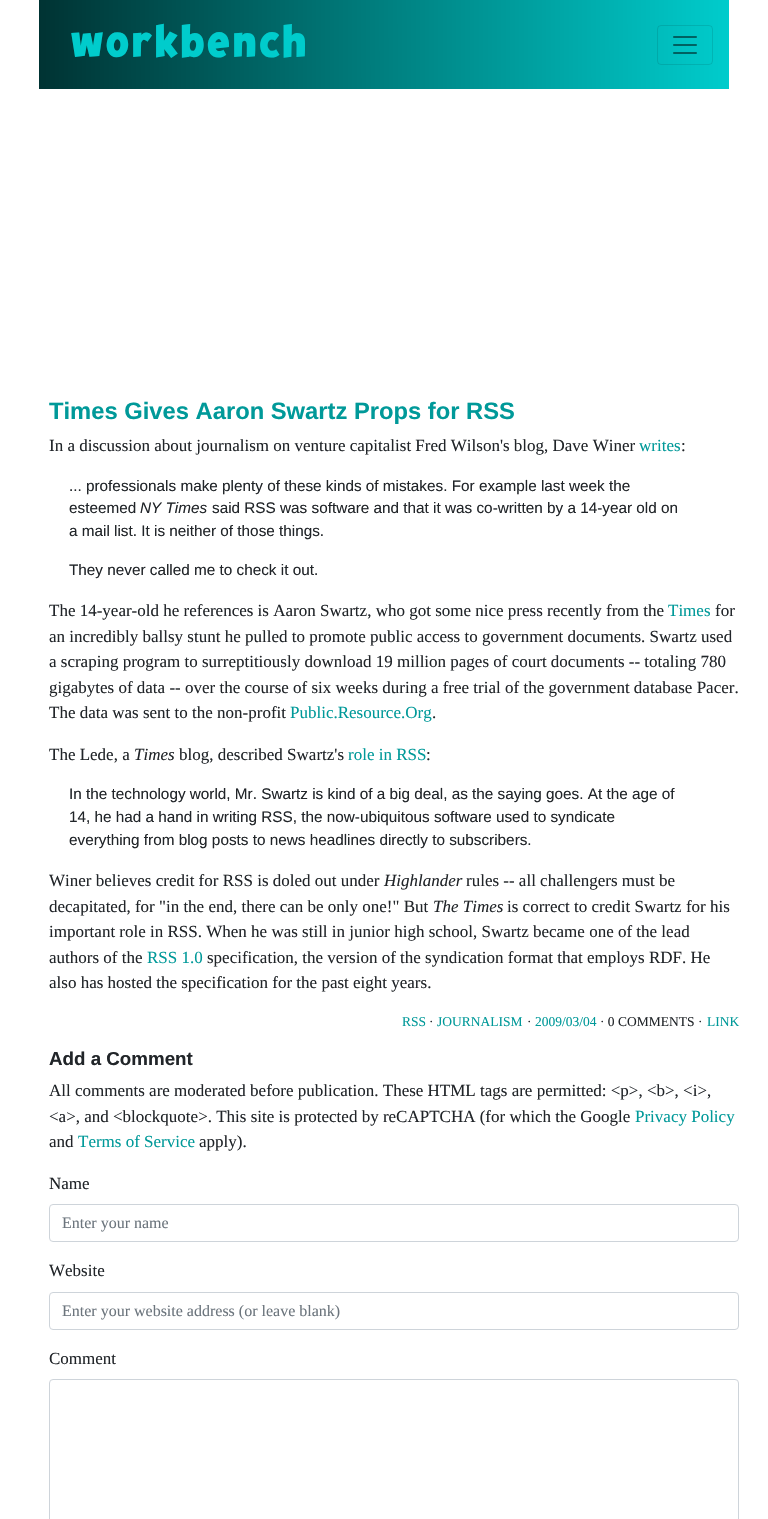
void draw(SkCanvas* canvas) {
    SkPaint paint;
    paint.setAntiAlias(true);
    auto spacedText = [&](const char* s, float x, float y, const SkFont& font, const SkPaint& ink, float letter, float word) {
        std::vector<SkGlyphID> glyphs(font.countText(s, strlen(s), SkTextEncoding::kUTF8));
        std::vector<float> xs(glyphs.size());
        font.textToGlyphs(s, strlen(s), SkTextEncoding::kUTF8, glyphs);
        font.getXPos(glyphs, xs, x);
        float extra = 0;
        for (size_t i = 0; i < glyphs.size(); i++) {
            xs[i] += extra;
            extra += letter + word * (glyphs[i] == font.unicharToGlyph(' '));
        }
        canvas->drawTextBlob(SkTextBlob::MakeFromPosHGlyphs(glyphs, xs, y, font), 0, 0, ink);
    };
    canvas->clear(0xFFFFFFFF);
    {
        const SkColor colors[] = {0xFF003333, 0xFF00CCCC};
        const float stops[] = {0, 1};
        const SkPoint ends[] = {{39, 45}, {729, 44}};
        paint.setShader(SkGradientShader::MakeLinear(ends, colors, stops, 2, SkTileMode::kClamp));
        paint.setAlpha(255);
    }
    canvas->drawRect(SkRect::MakeXYWH(39, 0, 690, 89), paint);
    SkFont font1(fontMgr->matchFamilyStyle("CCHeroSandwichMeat", SkFontStyle::Normal()), 42);
    font1.setSubpixel(true);
    paint.setShader(nullptr);
    paint.setColor(0xFF00CCCC);
    spacedText("workbench", 70, 57, font1, paint, 2, 0);
    paint.setStyle(SkPaint::kStroke_Style);
    paint.setStrokeWidth(1);
    paint.setColor(0x1A000000);
    canvas->drawRoundRect(SkRect::MakeXYWH(657.5f, 25.5f, 55, 39), 3.5f, 3.5f, paint);
    canvas->drawImageRect(SkImages::DeferredFromEncodedData(SkData::MakeFromFileName("img1.png")), SkRect::MakeXYWH(673, 36, 24, 18), SkSamplingOptions());
    SkFont font2(fontMgr->matchFamilyStyle("Liberation Sans", SkFontStyle::Bold()), 23.75f);
    font2.setSubpixel(true);
    paint.setStyle(SkPaint::kFill_Style);
    paint.setColor(0xFF009999);
    canvas->drawString("Times Gives Aaron Swartz Props for RSS", 49, 419, font2, paint);
    SkFont font3(fontMgr->matchFamilyStyle("Liberation Serif", SkFontStyle::Normal()), 17);
    font3.setSubpixel(true);
    paint.setColor(0xFF212529);
    canvas->drawString("In a discussion about journalism on venture capitalist Fred Wilson's blog, Dave Winer", 49, 451, font3, paint);
    paint.setColor(0xFF009999);
    canvas->drawString("writes", 639, 451, font3, paint);
    paint.setColor(0xFF212529);
    canvas->drawString(":", 681, 451, font3, paint);
    SkFont font4(fontMgr->matchFamilyStyle("Liberation Sans", SkFontStyle::Normal()), 15.3f);
    font4.setSubpixel(true);
    canvas->drawString("... professionals make plenty of these kinds of mistakes. For example last week the", 69, 491, font4, paint);
    canvas->drawString("esteemed", 69, 513, font4, paint);
    SkFont font5(fontMgr->matchFamilyStyle("Liberation Sans", SkFontStyle::Italic()), 15.3f);
    font5.setSubpixel(true);
    canvas->drawString("NY Times", 140, 513, font5, paint);
    canvas->drawString("said RSS was software and that it was co-written by a 14-year old on", 212, 513, font4, paint);
    canvas->drawString("a mail list. It is neither of those things.", 69, 536, font4, paint);
    canvas->drawString("They never called me to check it out.", 69, 575, font4, paint);
    canvas->drawString("The 14-year-old he references is Aaron Swartz, who got some nice press recently from the", 49, 616, font3, paint);
    paint.setColor(0xFF009999);
    canvas->drawString("Times", 668, 616, font3, paint);
    paint.setColor(0xFF212529);
    canvas->drawString("for", 715, 616, font3, paint);
    canvas->drawString("an incredibly ballsy stunt he pulled to promote public access to government documents. Swartz used", 49, 642, font3, paint);
    canvas->drawString("a scraping program to surreptitiously download 19 million pages of court documents -- totaling 780", 49, 667, font3, paint);
    canvas->drawString("gigabytes of data -- over the course of six weeks during a free trial of the government database Pacer.", 49, 693, font3, paint);
    canvas->drawString("The data was sent to the non-profit", 49, 718, font3, paint);
    paint.setColor(0xFF009999);
    canvas->drawString("Public.Resource.Org", 290, 718, font3, paint);
    paint.setColor(0xFF212529);
    canvas->drawString(".", 432, 718, font3, paint);
    canvas->drawString("The Lede, a", 49, 760, font3, paint);
    SkFont font6(fontMgr->matchFamilyStyle("Liberation Serif", SkFontStyle::Italic()), 17);
    font6.setSubpixel(true);
    canvas->drawString("Times", 134, 760, font6, paint);
    canvas->drawString("blog, described Swartz's", 179, 760, font3, paint);
    paint.setColor(0xFF009999);
    canvas->drawString("role in RSS", 348, 760, font3, paint);
    paint.setColor(0xFF212529);
    canvas->drawString(":", 426, 760, font3, paint);
    canvas->drawString("In the technology world, Mr. Swartz is kind of a big deal, as the saying goes. At the age of", 69, 799, font4, paint);
    canvas->drawString("14, he had a hand in writing RSS, the now-ubiquitous software used to syndicate", 69, 822, font4, paint);
    canvas->drawString("everything from blog posts to news headlines directly to subscribers.", 69, 845, font4, paint);
    canvas->drawString("Winer believes credit for RSS is doled out under", 49, 886, font3, paint);
    canvas->drawString("Highlander", 384, 886, font6, paint);
    canvas->drawString("rules -- all challengers must be", 466, 886, font3, paint);
    canvas->drawString("decapitated, for \"in the end, there can be only one!\" But", 49, 912, font3, paint);
    canvas->drawString("The Times", 433, 912, font6, paint);
    canvas->drawString("is correct to credit Swartz for his", 507, 912, font3, paint);
    canvas->drawString("important role in RSS. When he was still in junior high school, Swartz became one of the lead", 49, 937, font3, paint);
    canvas->drawString("authors of the", 49, 963, font3, paint);
    paint.setColor(0xFF009999);
    canvas->drawString("RSS 1.0", 147, 963, font3, paint);
    paint.setColor(0xFF212529);
    canvas->drawString("specification, the version of the syndication format that employs RDF. He", 207, 963, font3, paint);
    canvas->drawString("also has hosted the specification for the past eight years.", 49, 988, font3, paint);
    SkFont font7(fontMgr->matchFamilyStyle("Liberation Serif", SkFontStyle::Normal()), 13.5f);
    font7.setSubpixel(true);
    paint.setColor(0xFF009999);
    canvas->drawString("RSS", 402, 1026, font7, paint);
    paint.setColor(0xFF212529);
    canvas->drawString("·", 429, 1026, font7, paint);
    paint.setColor(0xFF009999);
    canvas->drawString("JOURNALISM", 437, 1026, font7, paint);
    paint.setColor(0xFF212529);
    canvas->drawString("·", 527, 1026, font7, paint);
    paint.setColor(0xFF009999);
    canvas->drawString("2009/03/04", 535, 1026, font7, paint);
    paint.setColor(0xFF212529);
    canvas->drawString("· 0 COMMENTS ·", 600, 1026, font7, paint);
    paint.setColor(0xFF009999);
    canvas->drawString("LINK", 707, 1026, font7, paint);
    SkFont font8(fontMgr->matchFamilyStyle("Liberation Sans", SkFontStyle::Bold()), 18.75f);
    font8.setSubpixel(true);
    paint.setColor(0xFF212529);
    canvas->drawString("Add a Comment", 49, 1065, font8, paint);
    canvas->drawString("All comments are moderated before publication. These HTML tags are permitted: <p>, <b>, <i>,", 49, 1096, font3, paint);
    canvas->drawString("<a>, and <blockquote>. This site is protected by reCAPTCHA (for which the Google", 49, 1122, font3, paint);
    paint.setColor(0xFF009999);
    canvas->drawString("Privacy Policy", 635, 1122, font3, paint);
    paint.setColor(0xFF212529);
    canvas->drawString("and", 49, 1147, font3, paint);
    paint.setColor(0xFF009999);
    canvas->drawString("Terms of Service", 78, 1147, font3, paint);
    paint.setColor(0xFF212529);
    canvas->drawString("apply).", 199, 1147, font3, paint);
    canvas->drawString("Name", 49, 1189, font3, paint);
    paint.setStyle(SkPaint::kStroke_Style);
    paint.setColor(0xFFCED4DA);
    canvas->drawRoundRect(SkRect::MakeXYWH(49.5f, 1204.5f, 689, 37), 3.5f, 3.5f, paint);
    SkFont font9(fontMgr->matchFamilyStyle("Liberation Serif", SkFontStyle::Normal()), 16);
    font9.setSubpixel(true);
    paint.setStyle(SkPaint::kFill_Style);
    paint.setColor(0xFF6C757D);
    canvas->drawString("Enter your name", 62, 1228, font9, paint);
    paint.setColor(0xFF212529);
    canvas->drawString("Website", 49, 1276, font3, paint);
    paint.setStyle(SkPaint::kStroke_Style);
    paint.setColor(0xFFCED4DA);
    canvas->drawRoundRect(SkRect::MakeXYWH(49.5f, 1292.5f, 689, 37), 3.5f, 3.5f, paint);
    paint.setStyle(SkPaint::kFill_Style);
    paint.setColor(0xFF6C757D);
    canvas->drawString("Enter your website address (or leave blank)", 62, 1316, font9, paint);
    paint.setColor(0xFF212529);
    canvas->drawString("Comment", 49, 1364, font3, paint);
    paint.setStyle(SkPaint::kStroke_Style);
    paint.setColor(0xFFCED4DA);
    canvas->drawRoundRect(SkRect::MakeXYWH(49.5f, 1379.5f, 689, 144), 3.5f, 3.5f, paint);
}
